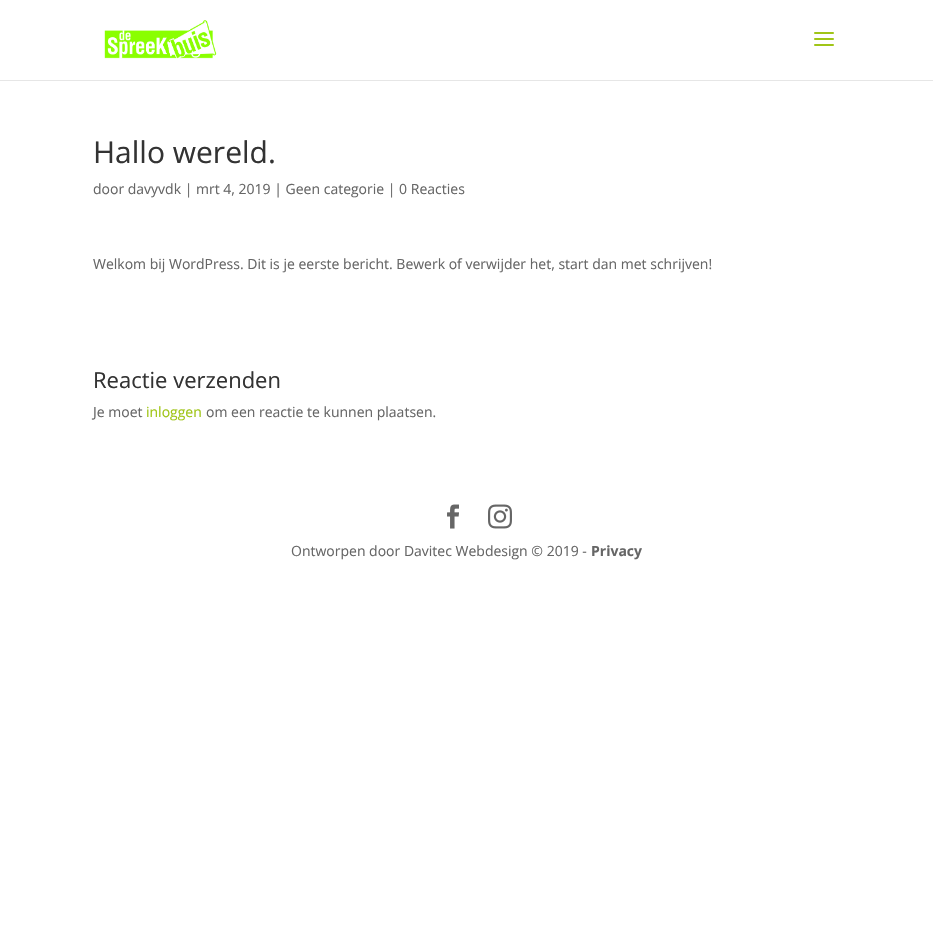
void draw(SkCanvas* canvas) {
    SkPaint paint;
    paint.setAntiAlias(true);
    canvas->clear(0xFFFFFFFF);
    paint.setColor(0xFFE6E6E6);
    canvas->drawRect(SkRect::MakeXYWH(0, 80, 933, 1), paint);
    canvas->drawImageRect(SkImages::DeferredFromEncodedData(SkData::MakeFromFileName("img1.png")), SkRect::MakeXYWH(104, 20, 113, 39), SkSamplingOptions());
    canvas->drawImageRect(SkImages::DeferredFromEncodedData(SkData::MakeFromFileName("img2.png")), SkRect::MakeXYWH(814, 32, 20, 14), SkSamplingOptions());
    SkFont font1(fontMgr->matchFamilyStyle("Open Sans", SkFontStyle::Normal()), 30);
    font1.setSubpixel(true);
    paint.setColor(0xFF333333);
    canvas->drawString("Hallo wereld.", 93, 163, font1, paint);
    SkFont font2(fontMgr->matchFamilyStyle("Open Sans", SkFontStyle::Normal()), 14);
    font2.setSubpixel(true);
    paint.setColor(0xFF666666);
    canvas->drawString("door davyvdk | mrt 4, 2019 | Geen categorie | 0 Reacties", 93, 194, font2, paint);
    canvas->drawString("Welkom bij WordPress. Dit is je eerste bericht. Bewerk of verwijder het, start dan met schrijven!", 93, 269, font2, paint);
    SkFont font3(fontMgr->matchFamilyStyle("Open Sans", SkFontStyle::Normal()), 22);
    font3.setSubpixel(true);
    paint.setColor(0xFF333333);
    canvas->drawString("Reactie verzenden", 93, 388, font3, paint);
    paint.setColor(0xFF666666);
    canvas->drawString("Je moet", 93, 417, font2, paint);
    paint.setColor(0xFFA0C518);
    canvas->drawString("inloggen", 146, 417, font2, paint);
    paint.setColor(0xFF666666);
    canvas->drawString("om een reactie te kunnen plaatsen.", 206, 417, font2, paint);
    canvas->drawImageRect(SkImages::DeferredFromEncodedData(SkData::MakeFromFileName("img3.png")), SkRect::MakeXYWH(447, 504, 12, 25), SkSamplingOptions());
    canvas->drawImageRect(SkImages::DeferredFromEncodedData(SkData::MakeFromFileName("img4.png")), SkRect::MakeXYWH(488, 504, 24, 25), SkSamplingOptions());
    canvas->drawString("Ontworpen door Davitec Webdesign © 2019 -", 291, 556, font2, paint);
    SkFont font4(fontMgr->matchFamilyStyle("Open Sans", SkFontStyle::Bold()), 14);
    font4.setSubpixel(true);
    canvas->drawString("Privacy", 591, 556, font4, paint);
}
